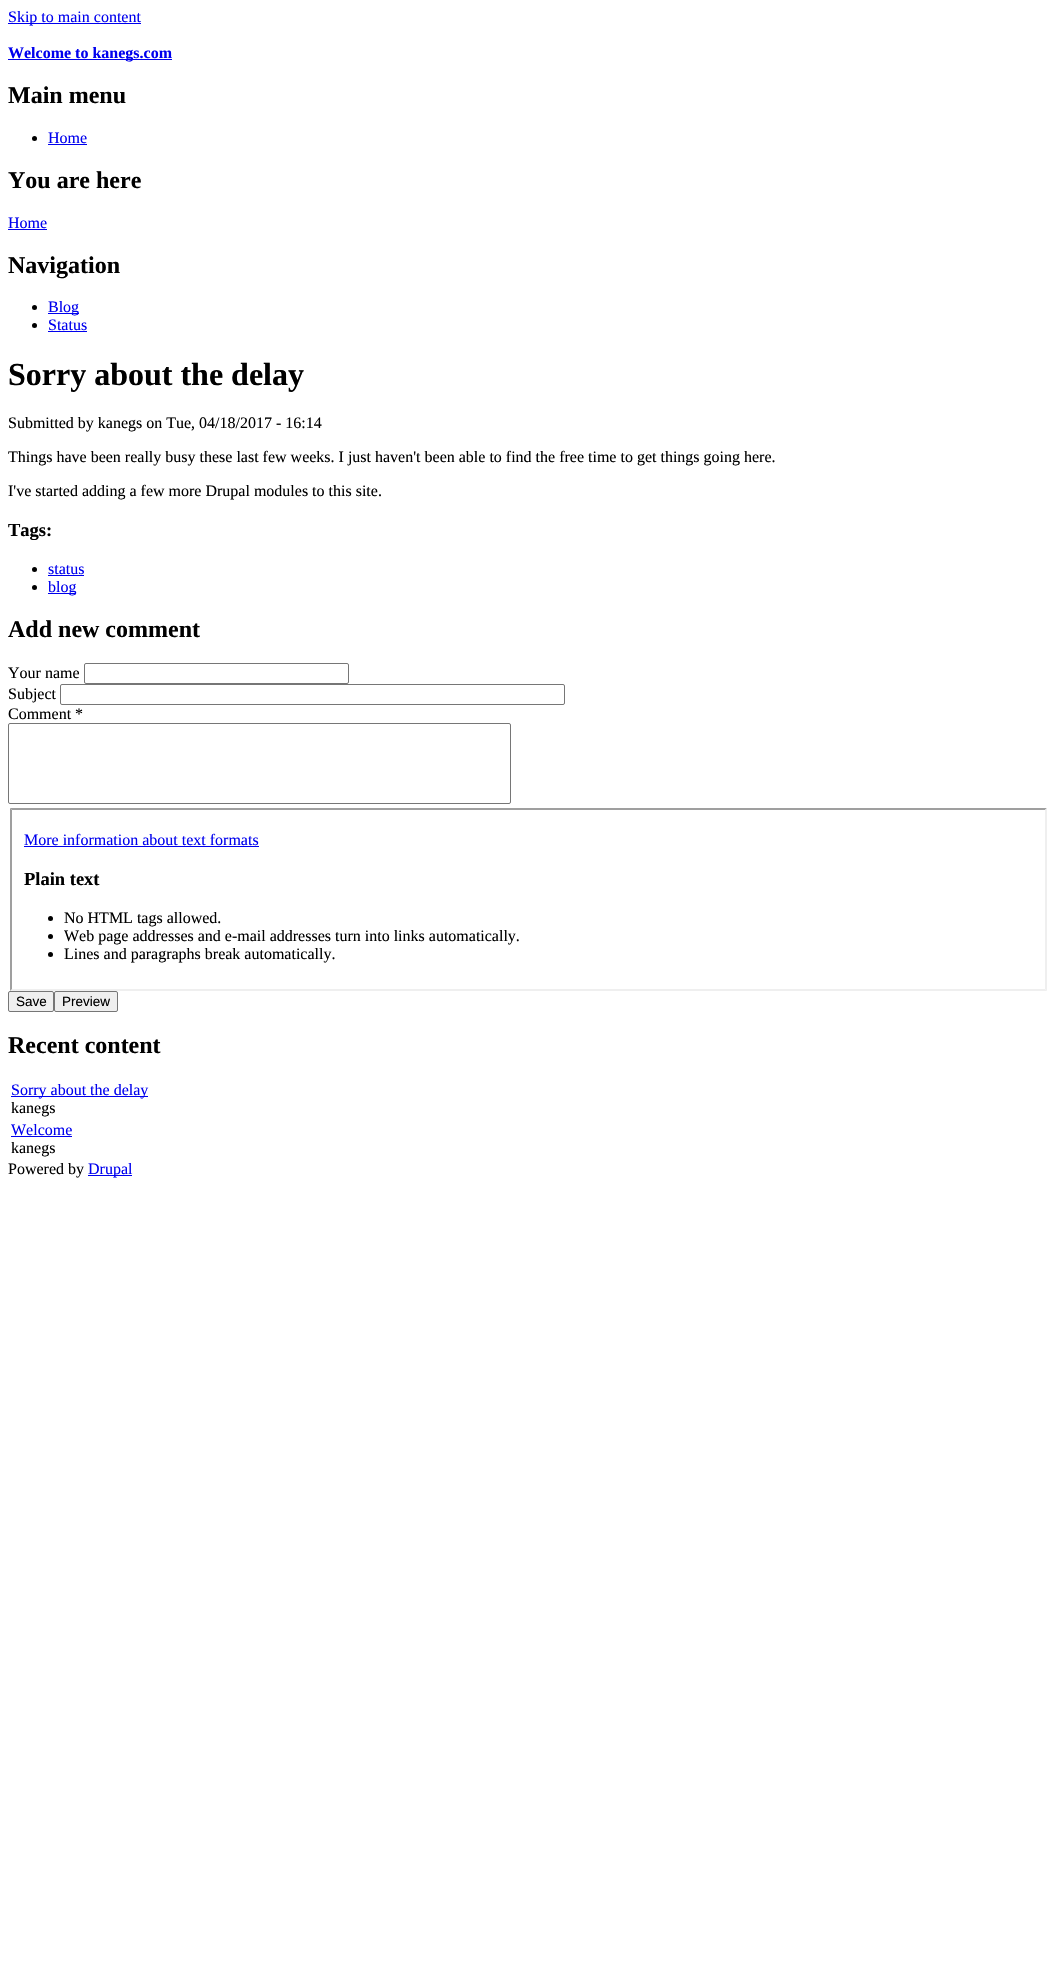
void draw(SkCanvas* canvas) {
    SkPaint paint;
    paint.setAntiAlias(true);
    canvas->clear(0xFFFFFFFF);
    paint.setColor(0xFF0000EE);
    canvas->drawRect(SkRect::MakeXYWH(8, 23, 133, 1), paint);
    SkFont font1(fontMgr->matchFamilyStyle("Liberation Serif", SkFontStyle::Normal()), 16);
    font1.setSubpixel(true);
    canvas->drawString("Skip to main content", 8, 22, font1, paint);
    canvas->drawRect(SkRect::MakeXYWH(8, 59, 164, 1), paint);
    SkFont font2(fontMgr->matchFamilyStyle("Liberation Serif", SkFontStyle::Bold()), 16);
    font2.setSubpixel(true);
    canvas->drawString("Welcome to kanegs.com", 8, 58, font2, paint);
    SkFont font3(fontMgr->matchFamilyStyle("Liberation Serif", SkFontStyle::Bold()), 24);
    font3.setSubpixel(true);
    paint.setColor(0xFF000000);
    canvas->drawString("Main menu", 8, 103, font3, paint);
    canvas->drawCircle(34.5f, 138.5f, 2.5f, paint);
    paint.setColor(0xFF0000EE);
    canvas->drawString("Home", 48, 143, font1, paint);
    canvas->drawRect(SkRect::MakeXYWH(48, 144, 39, 1), paint);
    paint.setColor(0xFF000000);
    canvas->drawString("You are here", 8, 188, font3, paint);
    paint.setColor(0xFF0000EE);
    canvas->drawString("Home", 8, 228, font1, paint);
    canvas->drawRect(SkRect::MakeXYWH(8, 229, 39, 1), paint);
    paint.setColor(0xFF000000);
    canvas->drawString("Navigation", 8, 273, font3, paint);
    canvas->drawCircle(34.5f, 307.5f, 2.5f, paint);
    paint.setColor(0xFF0000EE);
    canvas->drawRect(SkRect::MakeXYWH(48, 313, 31, 1), paint);
    canvas->drawString("Blog", 48, 312, font1, paint);
    paint.setColor(0xFF000000);
    canvas->drawCircle(34.5f, 325.5f, 2.5f, paint);
    paint.setColor(0xFF0000EE);
    canvas->drawString("Status", 48, 330, font1, paint);
    canvas->drawRect(SkRect::MakeXYWH(48, 331, 39, 1), paint);
    SkFont font4(fontMgr->matchFamilyStyle("Liberation Serif", SkFontStyle::Bold()), 32);
    font4.setSubpixel(true);
    paint.setColor(0xFF000000);
    canvas->drawString("Sorry about the delay", 8, 385, font4, paint);
    canvas->drawString("Submitted by kanegs on Tue, 04/18/2017 - 16:14", 8, 428, font1, paint);
    canvas->drawString("Things have been really busy these last few weeks. I just haven't been able to find the free time to get things going here.", 8, 462, font1, paint);
    canvas->drawString("I've started adding a few more Drupal modules to this site.", 8, 496, font1, paint);
    SkFont font5(fontMgr->matchFamilyStyle("Liberation Serif", SkFontStyle::Bold()), 18.5f);
    font5.setSubpixel(true);
    canvas->drawString("Tags:", 8, 536, font5, paint);
    canvas->drawCircle(34.5f, 569.5f, 2.5f, paint);
    paint.setColor(0xFF0000EE);
    canvas->drawString("status", 48, 574, font1, paint);
    canvas->drawRect(SkRect::MakeXYWH(48, 575, 36, 1), paint);
    paint.setColor(0xFF000000);
    canvas->drawCircle(34.5f, 587.5f, 2.5f, paint);
    paint.setColor(0xFF0000EE);
    canvas->drawRect(SkRect::MakeXYWH(48, 593, 28, 1), paint);
    canvas->drawString("blog", 48, 592, font1, paint);
    paint.setColor(0xFF000000);
    canvas->drawString("Add new comment", 8, 637, font3, paint);
    canvas->drawString("Your name", 8, 678, font1, paint);
    paint.setStyle(SkPaint::kStroke_Style);
    paint.setStrokeWidth(1);
    paint.setColor(0xFF767676);
    canvas->drawRoundRect(SkRect::MakeXYWH(84.5f, 663.5f, 264, 20), 1.5f, 1.5f, paint);
    paint.setStyle(SkPaint::kFill_Style);
    paint.setColor(0xFF000000);
    canvas->drawString("Subject", 8, 699, font1, paint);
    paint.setStyle(SkPaint::kStroke_Style);
    paint.setColor(0xFF767676);
    canvas->drawRoundRect(SkRect::MakeXYWH(60.5f, 684.5f, 504, 20), 1.5f, 1.5f, paint);
    paint.setStyle(SkPaint::kFill_Style);
    paint.setColor(0xFF000000);
    canvas->drawString("Comment *", 8, 719, font1, paint);
    paint.setStyle(SkPaint::kStroke_Style);
    paint.setColor(0xFF767676);
    canvas->drawRoundRect(SkRect::MakeXYWH(8.5f, 723.5f, 502, 80), 1.5f, 1.5f, paint);
    paint.setStyle(SkPaint::kFill_Style);
    paint.setColor(0xFF9F9F9F);
    canvas->drawPath(SkPathBuilder().moveTo(10, 808).lineTo(1047, 808).lineTo(1045, 810).lineTo(12, 810).close().detach(), paint);
    paint.setColor(0xFFEFEFEF);
    canvas->drawPath(SkPathBuilder().moveTo(1047, 808).lineTo(1047, 991).lineTo(1045, 989).lineTo(1045, 810).close().detach(), paint);
    canvas->drawPath(SkPathBuilder().moveTo(1047, 991).lineTo(10, 991).lineTo(12, 989).lineTo(1045, 989).close().detach(), paint);
    paint.setColor(0xFF9F9F9F);
    canvas->drawPath(SkPathBuilder().moveTo(10, 991).lineTo(10, 808).lineTo(12, 810).lineTo(12, 989).close().detach(), paint);
    paint.setColor(0xFF0000EE);
    canvas->drawString("More information about text formats", 24, 845, font1, paint);
    canvas->drawRect(SkRect::MakeXYWH(24, 846, 235, 1), paint);
    paint.setColor(0xFF000000);
    canvas->drawString("Plain text", 24, 885, font5, paint);
    canvas->drawCircle(50.5f, 918.5f, 2.5f, paint);
    canvas->drawString("No HTML tags allowed.", 64, 923, font1, paint);
    canvas->drawCircle(50.5f, 936.5f, 2.5f, paint);
    canvas->drawString("Web page addresses and e-mail addresses turn into links automatically.", 64, 941, font1, paint);
    canvas->drawCircle(50.5f, 954.5f, 2.5f, paint);
    canvas->drawString("Lines and paragraphs break automatically.", 64, 959, font1, paint);
    paint.setColor(0xFFEFEFEF);
    canvas->drawRoundRect(SkRect::MakeXYWH(8.5f, 991.5f, 45, 20), 1.5f, 1.5f, paint);
    paint.setStyle(SkPaint::kStroke_Style);
    paint.setColor(0xFF767676);
    canvas->drawRoundRect(SkRect::MakeXYWH(8.5f, 991.5f, 45, 20), 1.5f, 1.5f, paint);
    SkFont font6(fontMgr->matchFamilyStyle("Liberation Sans", SkFontStyle::Normal()), 13.5f);
    font6.setSubpixel(true);
    paint.setStyle(SkPaint::kFill_Style);
    paint.setColor(0xFF000000);
    canvas->drawString("Save", 16, 1006, font6, paint);
    paint.setColor(0xFFEFEFEF);
    canvas->drawRoundRect(SkRect::MakeXYWH(54.5f, 991.5f, 63, 20), 1.5f, 1.5f, paint);
    paint.setStyle(SkPaint::kStroke_Style);
    paint.setColor(0xFF767676);
    canvas->drawRoundRect(SkRect::MakeXYWH(54.5f, 991.5f, 63, 20), 1.5f, 1.5f, paint);
    paint.setStyle(SkPaint::kFill_Style);
    paint.setColor(0xFF000000);
    canvas->drawString("Preview", 62, 1006, font6, paint);
    canvas->drawString("Recent content", 8, 1053, font3, paint);
    paint.setColor(0xFF0000EE);
    canvas->drawRect(SkRect::MakeXYWH(11, 1096, 137, 1), paint);
    canvas->drawString("Sorry about the delay", 11, 1095, font1, paint);
    paint.setColor(0xFF000000);
    canvas->drawString("kanegs", 11, 1113, font1, paint);
    paint.setColor(0xFF0000EE);
    canvas->drawString("Welcome", 11, 1135, font1, paint);
    canvas->drawRect(SkRect::MakeXYWH(11, 1136, 61, 1), paint);
    paint.setColor(0xFF000000);
    canvas->drawString("kanegs", 11, 1153, font1, paint);
    canvas->drawString("Powered by", 8, 1174, font1, paint);
    paint.setColor(0xFF0000EE);
    canvas->drawRect(SkRect::MakeXYWH(88, 1175, 44, 1), paint);
    canvas->drawString("Drupal", 88, 1174, font1, paint);
}
